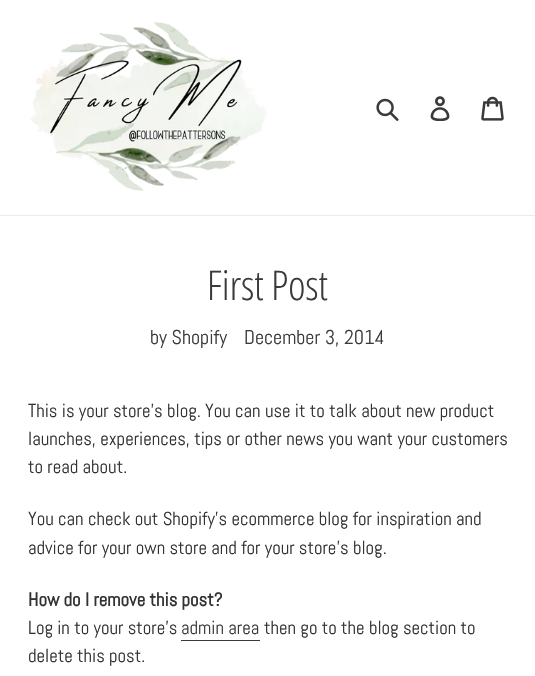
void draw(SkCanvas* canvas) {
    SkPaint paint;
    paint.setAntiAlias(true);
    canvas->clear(0xFFFFFFFF);
    paint.setColor(0xFFEBEBEB);
    canvas->drawRect(SkRect::MakeXYWH(0, 215, 535, 1), paint);
    canvas->drawImageRect(SkImages::DeferredFromEncodedData(SkData::MakeFromFileName("img1.png")), SkRect::MakeXYWH(30, 22, 237, 169), SkSamplingOptions());
    canvas->drawImageRect(SkImages::DeferredFromEncodedData(SkData::MakeFromFileName("img2.png")), SkRect::MakeXYWH(376, 98, 23, 23), SkSamplingOptions());
    canvas->drawImageRect(SkImages::DeferredFromEncodedData(SkData::MakeFromFileName("img3.png")), SkRect::MakeXYWH(430, 96, 20, 25), SkSamplingOptions());
    canvas->drawImageRect(SkImages::DeferredFromEncodedData(SkData::MakeFromFileName("img4.png")), SkRect::MakeXYWH(481, 96, 23, 25), SkSamplingOptions());
    SkFont font1(fontMgr->matchFamilyStyle("Open Sans Condensed", SkFontStyle(300, SkFontStyle::kNormal_Width, SkFontStyle::kUpright_Slant)), 41);
    font1.setSubpixel(true);
    paint.setColor(0xFF3A3A3A);
    canvas->drawString("First Post", 207, 300, font1, paint);
    SkFont font2(fontMgr->matchFamilyStyle("Abel", SkFontStyle::Normal()), 20);
    font2.setSubpixel(true);
    canvas->drawString("by Shopify", 150, 344, font2, paint);
    canvas->drawString("December 3, 2014", 244, 344, font2, paint);
    SkFont font3(fontMgr->matchFamilyStyle("Abel", SkFontStyle::Normal()), 18.75f);
    font3.setSubpixel(true);
    paint.setColor(0xFF333232);
    canvas->drawString("This is your store’s blog. You can use it to talk about new product", 28, 417, font3, paint);
    canvas->drawString("launches, experiences, tips or other news you want your customers", 28, 445, font3, paint);
    canvas->drawString("to read about.", 28, 473, font3, paint);
    canvas->drawString("You can check out Shopify’s ecommerce blog for inspiration and", 28, 525, font3, paint);
    canvas->drawString("advice for your own store and for your store’s blog.", 28, 554, font3, paint);
    SkFont font4(fontMgr->matchFamilyStyle("Abel", SkFontStyle::Bold()), 18.75f);
    font4.setSubpixel(true);
    canvas->drawString("How do I remove this post?", 28, 606, font4, paint);
    canvas->drawString("Log in to your store’s", 28, 634, font3, paint);
    paint.setColor(0xFF3A3A3A);
    canvas->drawString("admin area", 181, 634, font3, paint);
    canvas->drawRect(SkRect::MakeXYWH(181, 640, 79, 1), paint);
    paint.setColor(0xFF333232);
    canvas->drawString("then go to the blog section to", 264, 634, font3, paint);
    canvas->drawString("delete this post.", 28, 662, font3, paint);
}
